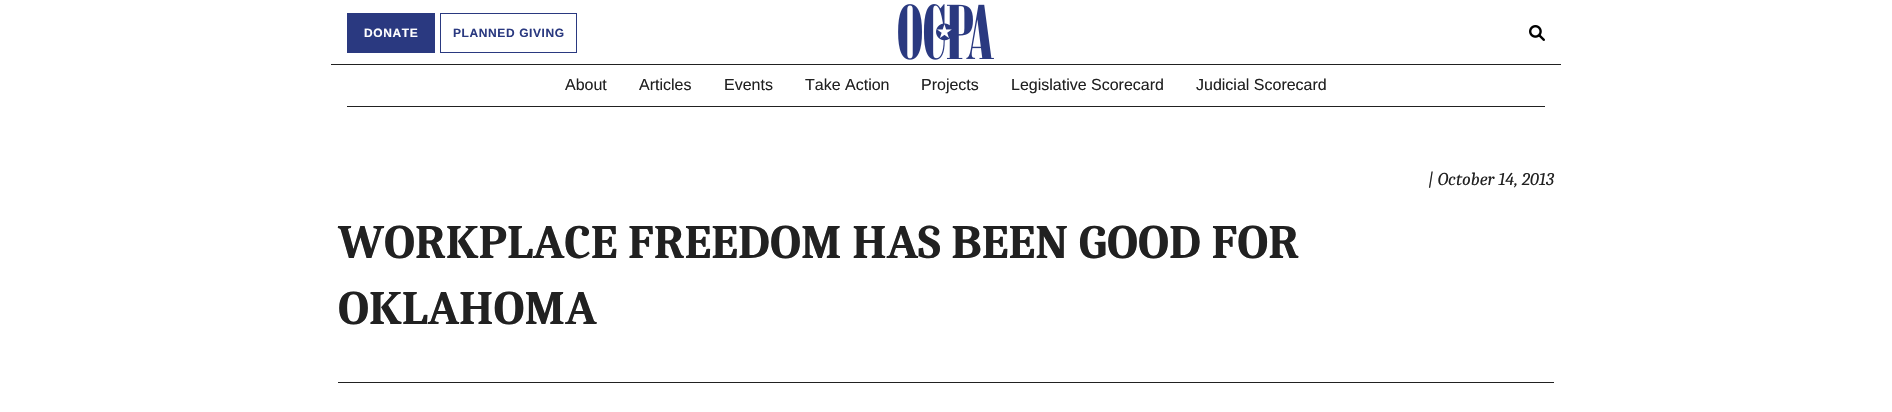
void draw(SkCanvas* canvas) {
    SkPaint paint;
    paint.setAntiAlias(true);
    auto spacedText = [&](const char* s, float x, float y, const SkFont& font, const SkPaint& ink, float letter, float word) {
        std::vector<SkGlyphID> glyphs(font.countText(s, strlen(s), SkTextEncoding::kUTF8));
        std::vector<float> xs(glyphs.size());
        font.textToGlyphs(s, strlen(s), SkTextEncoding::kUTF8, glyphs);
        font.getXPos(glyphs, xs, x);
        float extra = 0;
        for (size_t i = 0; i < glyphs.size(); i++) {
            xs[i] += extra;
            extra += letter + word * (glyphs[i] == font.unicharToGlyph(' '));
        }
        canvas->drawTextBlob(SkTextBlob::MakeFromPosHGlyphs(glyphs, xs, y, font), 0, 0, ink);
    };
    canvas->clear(0xFFFFFFFF);
    paint.setColor(0xFF212121);
    canvas->drawRect(SkRect::MakeXYWH(331, 64, 1230, 1), paint);
    paint.setColor(0xFF2A3980);
    canvas->drawRect(SkRect::MakeXYWH(347, 13, 88, 40), paint);
    SkFont font1(fontMgr->matchFamilyStyle("Liberation Sans", SkFontStyle::Bold()), 12);
    font1.setSubpixel(true);
    paint.setColor(0xFFFFFFFF);
    spacedText("DONATE", 364, 37, font1, paint, 0.6f, 0);
    paint.setStyle(SkPaint::kStroke_Style);
    paint.setStrokeWidth(1);
    paint.setColor(0xFF2A3980);
    canvas->drawRect(SkRect::MakeXYWH(440.5f, 13.5f, 136, 39), paint);
    paint.setStyle(SkPaint::kFill_Style);
    spacedText("PLANNED GIVING", 453, 37, font1, paint, 0.6f, 0);
    canvas->drawImageRect(SkImages::DeferredFromEncodedData(SkData::MakeFromFileName("img1.png")), SkRect::MakeXYWH(898, 4, 96, 56), SkSamplingOptions());
    canvas->drawImageRect(SkImages::DeferredFromEncodedData(SkData::MakeFromFileName("img2.png")), SkRect::MakeXYWH(1529, 25, 16, 16), SkSamplingOptions());
    paint.setColor(0xFF212121);
    canvas->drawRect(SkRect::MakeXYWH(347, 106, 1198, 1), paint);
    SkFont font2(fontMgr->matchFamilyStyle("Liberation Sans", SkFontStyle::Normal()), 16);
    font2.setSubpixel(true);
    canvas->drawString("About", 565, 90, font2, paint);
    canvas->drawString("Articles", 639, 90, font2, paint);
    canvas->drawString("Events", 724, 90, font2, paint);
    canvas->drawString("Take Action", 805, 90, font2, paint);
    canvas->drawString("Projects", 921, 90, font2, paint);
    canvas->drawString("Legislative Scorecard", 1011, 90, font2, paint);
    canvas->drawString("Judicial Scorecard", 1196, 90, font2, paint);
    canvas->drawRect(SkRect::MakeXYWH(338, 382, 1216, 1), paint);
    SkFont font3(fontMgr->matchFamilyStyle("Caladea", SkFontStyle::Italic()), 18);
    font3.setSubpixel(true);
    canvas->drawString("| October 14, 2013", 1428, 185, font3, paint);
    SkFont font4(fontMgr->matchFamilyStyle("Caladea", SkFontStyle::Bold()), 48);
    font4.setSubpixel(true);
    canvas->drawString("WORKPLACE FREEDOM HAS BEEN GOOD FOR", 338, 258, font4, paint);
    canvas->drawString("OKLAHOMA", 338, 324, font4, paint);
}
